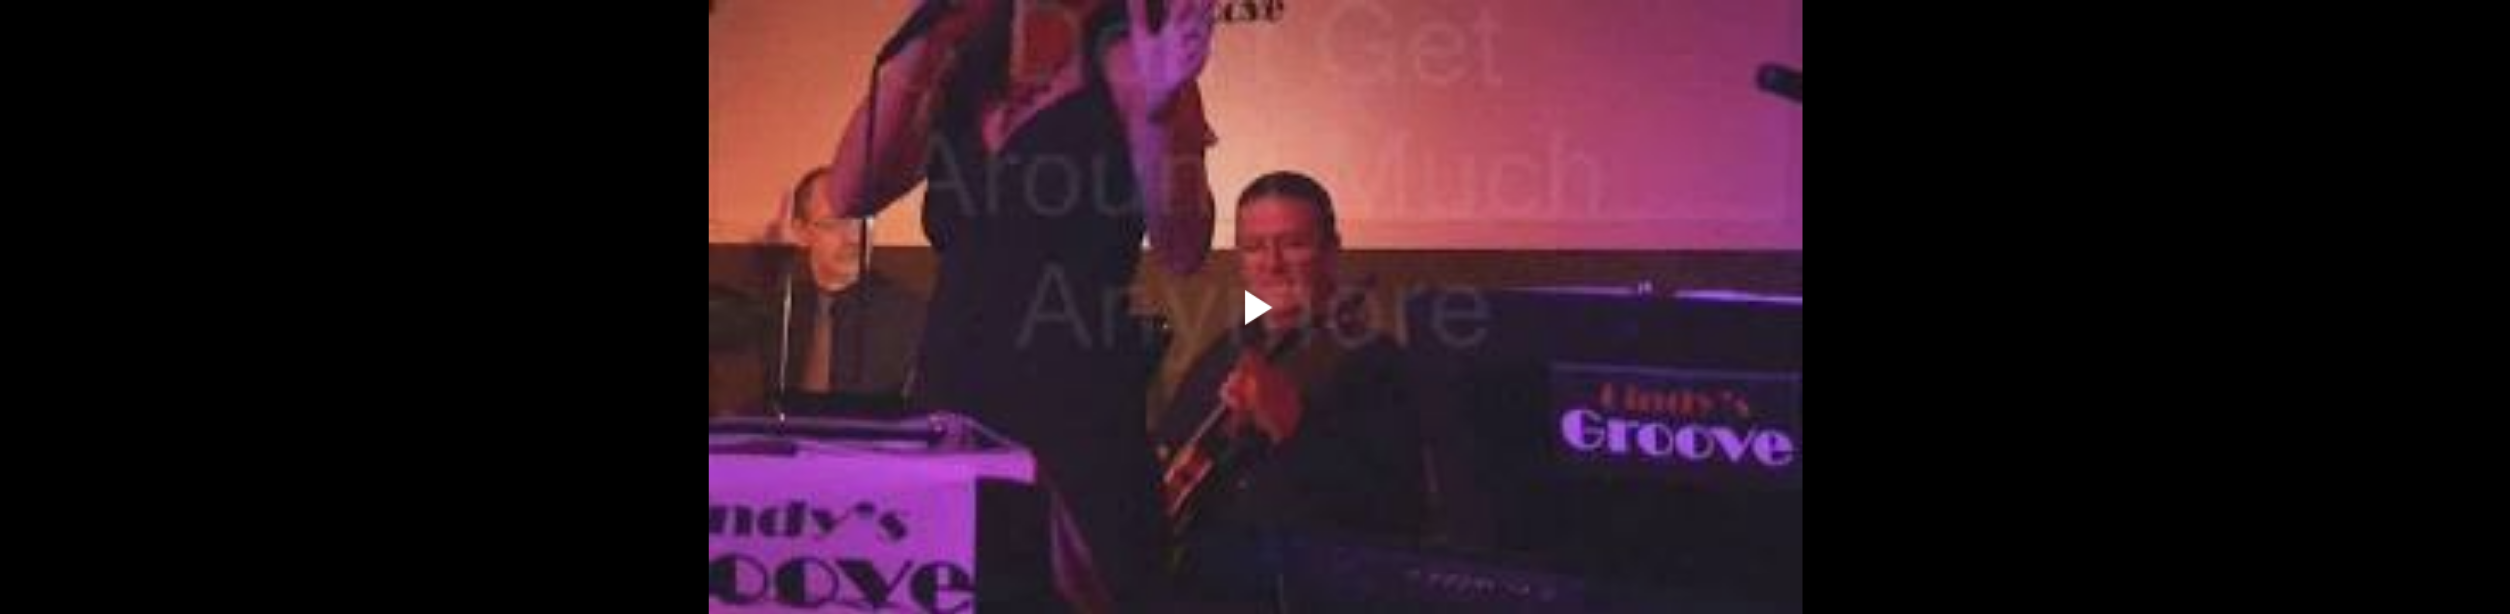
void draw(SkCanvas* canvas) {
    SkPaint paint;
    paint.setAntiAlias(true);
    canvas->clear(0xFF000000);
    canvas->drawImageRect(SkImages::DeferredFromEncodedData(SkData::MakeFromFileName("img1.png")), SkRect::MakeXYWH(708, 0, 1095, 614), SkSamplingOptions());
    canvas->drawImageRect(SkImages::DeferredFromEncodedData(SkData::MakeFromFileName("img2.png")), SkRect::MakeXYWH(1244, 289, 29, 37), SkSamplingOptions());
}
